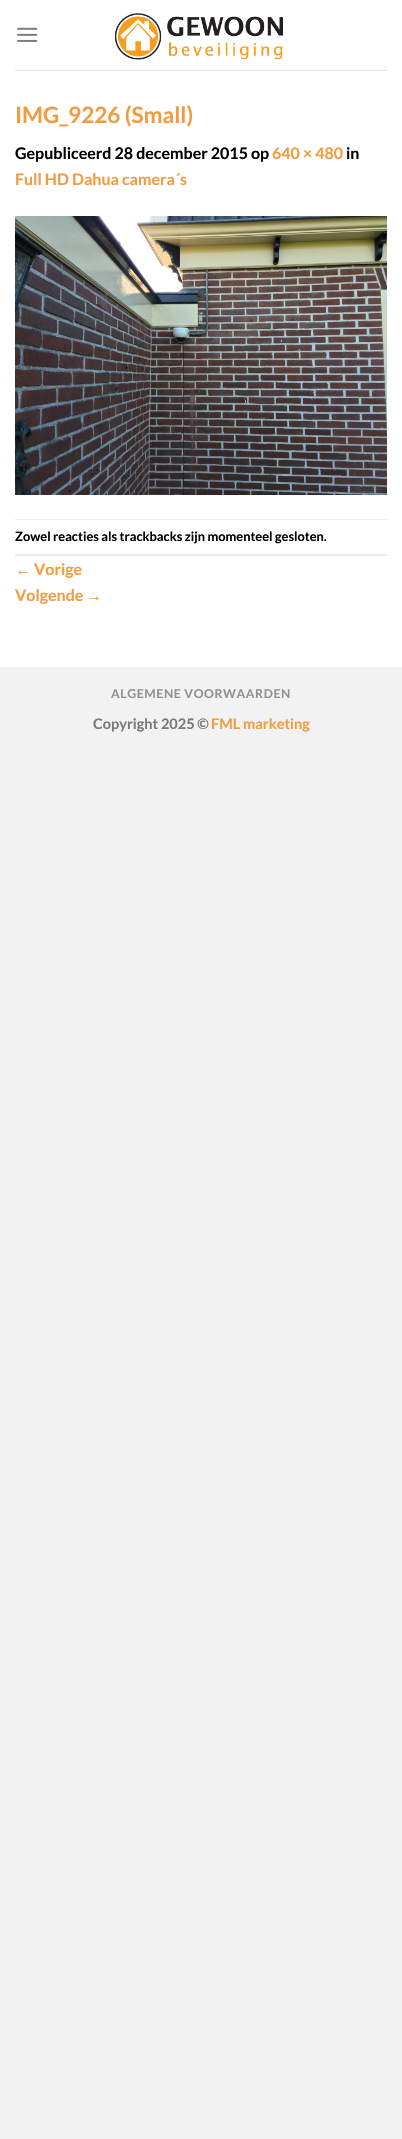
void draw(SkCanvas* canvas) {
    SkPaint paint;
    paint.setAntiAlias(true);
    auto spacedText = [&](const char* s, float x, float y, const SkFont& font, const SkPaint& ink, float letter, float word) {
        std::vector<SkGlyphID> glyphs(font.countText(s, strlen(s), SkTextEncoding::kUTF8));
        std::vector<float> xs(glyphs.size());
        font.textToGlyphs(s, strlen(s), SkTextEncoding::kUTF8, glyphs);
        font.getXPos(glyphs, xs, x);
        float extra = 0;
        for (size_t i = 0; i < glyphs.size(); i++) {
            xs[i] += extra;
            extra += letter + word * (glyphs[i] == font.unicharToGlyph(' '));
        }
        canvas->drawTextBlob(SkTextBlob::MakeFromPosHGlyphs(glyphs, xs, y, font), 0, 0, ink);
    };
    canvas->clear(0xFFF2F2F2);
    paint.setColor(0xFFFFFFFF);
    canvas->drawRect(SkRect::MakeXYWH(0, 0, 402, 667), paint);
    canvas->drawImageRect(SkImages::DeferredFromEncodedData(SkData::MakeFromFileName("img1.png")), SkRect::MakeXYWH(17, 27, 21, 15), SkSamplingOptions());
    canvas->drawImageRect(SkImages::DeferredFromEncodedData(SkData::MakeFromFileName("img2.png")), SkRect::MakeXYWH(115, 13, 168, 47), SkSamplingOptions());
    paint.setColor(0xFFE6E6E6);
    canvas->drawRect(SkRect::MakeXYWH(15, 70, 372, 1), paint);
    SkFont font1(fontMgr->matchFamilyStyle("Lato", SkFontStyle::Bold()), 22.5f);
    font1.setSubpixel(true);
    paint.setColor(0xFFF59B3F);
    canvas->drawString("IMG_9226 (Small)", 15, 123, font1, paint);
    SkFont font2(fontMgr->matchFamilyStyle("Lato", SkFontStyle::Bold()), 16);
    font2.setSubpixel(true);
    paint.setColor(0xFF000000);
    canvas->drawString("Gepubliceerd 28 december 2015 op", 15, 159, font2, paint);
    paint.setColor(0xFFF59B3F);
    canvas->drawString("640 × 480", 272, 159, font2, paint);
    paint.setColor(0xFF000000);
    canvas->drawString("in", 346, 159, font2, paint);
    paint.setColor(0xFFF59B3F);
    canvas->drawString("Full HD Dahua camera´s", 15, 185, font2, paint);
    canvas->drawImageRect(SkImages::DeferredFromEncodedData(SkData::MakeFromFileName("img3.png")), SkRect::MakeXYWH(15, 216, 372, 279), SkSamplingOptions());
    paint.setColor(0xFFECECEC);
    canvas->drawRect(SkRect::MakeXYWH(15, 519, 372, 1), paint);
    canvas->drawRect(SkRect::MakeXYWH(15, 554, 372, 2), paint);
    SkFont font3(fontMgr->matchFamilyStyle("Lato", SkFontStyle::Bold()), 12.8f);
    font3.setSubpixel(true);
    paint.setColor(0xFF000000);
    canvas->drawString("Zowel reacties als trackbacks zijn momenteel gesloten.", 15, 541, font3, paint);
    SkFont font4(fontMgr->matchFamilyStyle("Liberation Sans", SkFontStyle::Normal()), 16);
    font4.setSubpixel(true);
    paint.setColor(0xFFF59B3F);
    canvas->drawString("←", 15, 575, font4, paint);
    canvas->drawString("Vorige", 34, 575, font2, paint);
    canvas->drawString("Volgende", 15, 601, font2, paint);
    canvas->drawString("→", 86, 601, font4, paint);
    SkFont font5(fontMgr->matchFamilyStyle("Lato", SkFontStyle::Bold()), 12.25f);
    font5.setSubpixel(true);
    paint.setColor(0xFF919191);
    spacedText("ALGEMENE VOORWAARDEN", 111, 698, font5, paint, 0.6f, 0);
    SkFont font6(fontMgr->matchFamilyStyle("Lato", SkFontStyle::Bold()), 14.5f);
    font6.setSubpixel(true);
    paint.setColor(0xFF797979);
    canvas->drawString("Copyright 2025 ©", 93, 729, font6, paint);
    paint.setColor(0xFFF59B3F);
    canvas->drawString("FML marketing", 211, 729, font6, paint);
}
